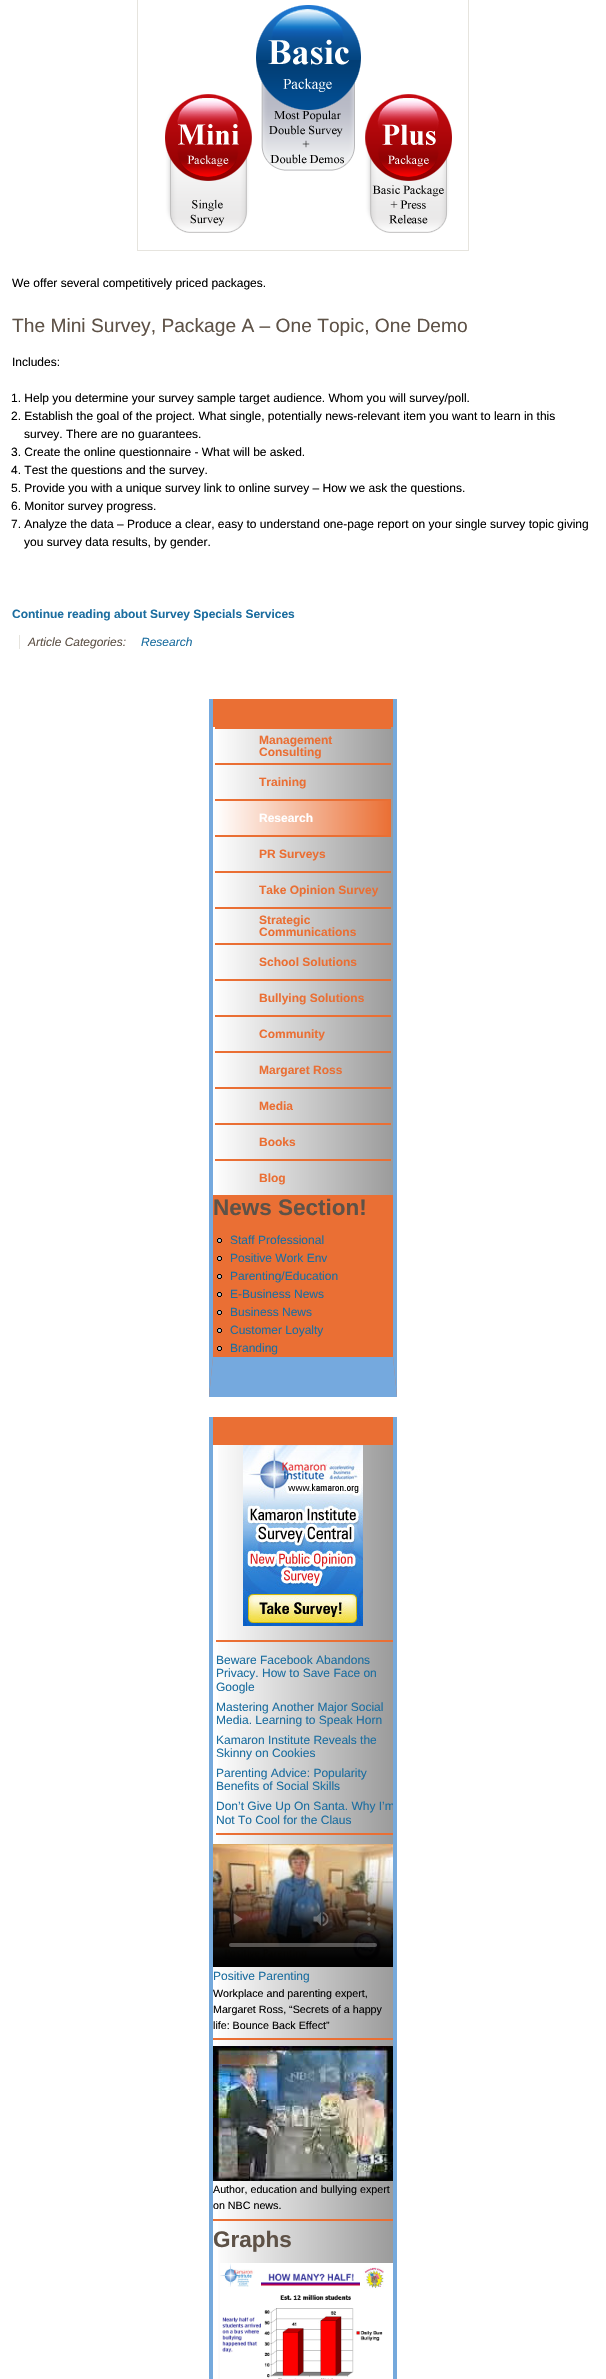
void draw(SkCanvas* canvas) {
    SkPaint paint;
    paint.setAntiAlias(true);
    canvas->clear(0xFFFFFFFF);
    paint.setStyle(SkPaint::kStroke_Style);
    paint.setStrokeWidth(1);
    paint.setColor(0xFFE6E4DE);
    canvas->drawRect(SkRect::MakeXYWH(137.5f, -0.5f, 331, 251), paint);
    canvas->drawImageRect(SkImages::DeferredFromEncodedData(SkData::MakeFromFileName("img1.png")), SkRect::MakeXYWH(165, 5, 287, 228), SkSamplingOptions());
    SkFont font1(fontMgr->matchFamilyStyle("Liberation Sans", SkFontStyle::Normal()), 12);
    font1.setSubpixel(true);
    paint.setStyle(SkPaint::kFill_Style);
    paint.setColor(0xFF000000);
    canvas->drawString("We offer several competitively priced packages.", 12, 287, font1, paint);
    SkFont font2(fontMgr->matchFamilyStyle("Liberation Sans", SkFontStyle::Normal()), 19.2f);
    font2.setSubpixel(true);
    paint.setColor(0xFF5E5247);
    canvas->drawString("The Mini Survey, Package A – One Topic, One Demo", 12, 332, font2, paint);
    paint.setColor(0xFF000000);
    canvas->drawString("Includes:", 12, 366, font1, paint);
    canvas->drawString("1. Help you determine your survey sample target audience. Whom you will survey/poll.", 11, 402, font1, paint);
    canvas->drawString("2. Establish the goal of the project. What single, potentially news-relevant item you want to learn in this", 11, 420, font1, paint);
    canvas->drawString("survey. There are no guarantees.", 24, 438, font1, paint);
    canvas->drawString("3. Create the online questionnaire - What will be asked.", 11, 456, font1, paint);
    canvas->drawString("4. Test the questions and the survey.", 11, 474, font1, paint);
    canvas->drawString("5. Provide you with a unique survey link to online survey – How we ask the questions.", 11, 492, font1, paint);
    canvas->drawString("6. Monitor survey progress.", 11, 510, font1, paint);
    canvas->drawString("7. Analyze the data – Produce a clear, easy to understand one-page report on your single survey topic giving", 11, 528, font1, paint);
    canvas->drawString("you survey data results, by gender.", 24, 546, font1, paint);
    SkFont font3(fontMgr->matchFamilyStyle("Liberation Sans", SkFontStyle::Bold()), 12);
    font3.setSubpixel(true);
    paint.setColor(0xFF1C6EA0);
    canvas->drawString("Continue reading about Survey Specials Services", 12, 618, font3, paint);
    SkFont font4(fontMgr->matchFamilyStyle("Liberation Sans", SkFontStyle::Italic()), 12);
    font4.setSubpixel(true);
    paint.setColor(0xFF5E5247);
    canvas->drawString("Article Categories:", 28, 646, font4, paint);
    paint.setColor(0xFFE6E4DE);
    canvas->drawRect(SkRect::MakeXYWH(19, 635, 1, 14), paint);
    paint.setColor(0xFF1C6EA0);
    canvas->drawString("Research", 141, 646, font4, paint);
    paint.setColor(0xFFEA6F34);
    canvas->drawRect(SkRect::MakeXYWH(209, 699, 188, 698), paint);
    paint.setColor(0xFF75A9DC);
    canvas->drawPath(SkPathBuilder().moveTo(397, 699).lineTo(397, 1397).lineTo(393, 1357).lineTo(393, 699).close().detach(), paint);
    paint.setColor(0xE668AFEF);
    canvas->drawPath(SkPathBuilder().moveTo(397, 1397).lineTo(209, 1397).lineTo(213, 1357).lineTo(393, 1357).close().detach(), paint);
    canvas->drawPath(SkPathBuilder().moveTo(209, 1397).lineTo(209, 699).lineTo(213, 699).lineTo(213, 1357).close().detach(), paint);
    {
        const SkColor colors[] = {0xFFFFFFFF, 0xFF9B9B9B};
        const float stops[] = {0, 1};
        const SkPoint ends[] = {{213, 961}, {393, 961}};
        paint.setShader(SkGradientShader::MakeLinear(ends, colors, stops, 2, SkTileMode::kClamp));
        paint.setAlpha(255);
    }
    canvas->drawRect(SkRect::MakeXYWH(213, 727, 180, 468), paint);
    paint.setShader(nullptr);
    paint.setColor(0xFFEA6F34);
    canvas->drawRect(SkRect::MakeXYWH(215, 727, 176, 2), paint);
    canvas->drawString("Management", 259, 744, font3, paint);
    canvas->drawString("Consulting", 259, 756, font3, paint);
    canvas->drawRect(SkRect::MakeXYWH(215, 763, 176, 2), paint);
    canvas->drawString("Training", 259, 786, font3, paint);
    {
        const SkColor colors[] = {0xFFFFFFFF, 0xFFEA6F34};
        const float stops[] = {0, 1};
        const SkPoint ends[] = {{215, 818}, {391, 818}};
        paint.setShader(SkGradientShader::MakeLinear(ends, colors, stops, 2, SkTileMode::kClamp));
        paint.setAlpha(255);
    }
    canvas->drawRect(SkRect::MakeXYWH(218, 801, 173, 34), paint);
    paint.setShader(nullptr);
    paint.setColor(0xFFEA6F34);
    canvas->drawRect(SkRect::MakeXYWH(215, 799, 176, 2), paint);
    paint.setColor(0xFFFFFFFF);
    canvas->drawString("Research", 259, 822, font3, paint);
    paint.setColor(0xFFEA6F34);
    canvas->drawRect(SkRect::MakeXYWH(215, 835, 176, 2), paint);
    canvas->drawString("PR Surveys", 259, 858, font3, paint);
    canvas->drawRect(SkRect::MakeXYWH(215, 871, 176, 2), paint);
    canvas->drawString("Take Opinion Survey", 259, 894, font3, paint);
    canvas->drawRect(SkRect::MakeXYWH(215, 907, 176, 2), paint);
    canvas->drawString("Strategic", 259, 924, font3, paint);
    canvas->drawString("Communications", 259, 936, font3, paint);
    canvas->drawRect(SkRect::MakeXYWH(215, 943, 176, 2), paint);
    canvas->drawString("School Solutions", 259, 966, font3, paint);
    canvas->drawRect(SkRect::MakeXYWH(215, 979, 176, 2), paint);
    canvas->drawString("Bullying Solutions", 259, 1002, font3, paint);
    canvas->drawRect(SkRect::MakeXYWH(215, 1015, 176, 2), paint);
    canvas->drawString("Community", 259, 1038, font3, paint);
    canvas->drawRect(SkRect::MakeXYWH(215, 1051, 176, 2), paint);
    canvas->drawString("Margaret Ross", 259, 1074, font3, paint);
    canvas->drawRect(SkRect::MakeXYWH(215, 1087, 176, 2), paint);
    canvas->drawString("Media", 259, 1110, font3, paint);
    canvas->drawRect(SkRect::MakeXYWH(215, 1123, 176, 2), paint);
    canvas->drawString("Books", 259, 1146, font3, paint);
    canvas->drawRect(SkRect::MakeXYWH(215, 1159, 176, 2), paint);
    canvas->drawString("Blog", 259, 1182, font3, paint);
    SkFont font5(fontMgr->matchFamilyStyle("Liberation Sans", SkFontStyle::Bold()), 22.5f);
    font5.setSubpixel(true);
    paint.setColor(0xFF5E5247);
    canvas->drawString("News Section!", 213, 1215, font5, paint);
    canvas->drawImageRect(SkImages::DeferredFromEncodedData(SkData::MakeFromFileName("img2.png")), SkRect::MakeXYWH(217, 1238, 5, 5), SkSamplingOptions());
    paint.setColor(0xFF1C6EA0);
    canvas->drawString("Staff Professional", 230, 1244, font1, paint);
    canvas->drawImageRect(SkImages::DeferredFromEncodedData(SkData::MakeFromFileName("img2.png")), SkRect::MakeXYWH(217, 1256, 5, 5), SkSamplingOptions());
    canvas->drawString("Positive Work Env", 230, 1262, font1, paint);
    canvas->drawImageRect(SkImages::DeferredFromEncodedData(SkData::MakeFromFileName("img2.png")), SkRect::MakeXYWH(217, 1274, 5, 5), SkSamplingOptions());
    canvas->drawString("Parenting/Education", 230, 1280, font1, paint);
    canvas->drawImageRect(SkImages::DeferredFromEncodedData(SkData::MakeFromFileName("img2.png")), SkRect::MakeXYWH(217, 1292, 5, 5), SkSamplingOptions());
    canvas->drawString("E-Business News", 230, 1298, font1, paint);
    canvas->drawImageRect(SkImages::DeferredFromEncodedData(SkData::MakeFromFileName("img2.png")), SkRect::MakeXYWH(217, 1310, 5, 5), SkSamplingOptions());
    canvas->drawString("Business News", 230, 1316, font1, paint);
    canvas->drawImageRect(SkImages::DeferredFromEncodedData(SkData::MakeFromFileName("img2.png")), SkRect::MakeXYWH(217, 1328, 5, 5), SkSamplingOptions());
    canvas->drawString("Customer Loyalty", 230, 1334, font1, paint);
    canvas->drawImageRect(SkImages::DeferredFromEncodedData(SkData::MakeFromFileName("img2.png")), SkRect::MakeXYWH(217, 1346, 5, 5), SkSamplingOptions());
    canvas->drawString("Branding", 230, 1352, font1, paint);
    paint.setColor(0xFFEA6F34);
    canvas->drawRect(SkRect::MakeXYWH(213, 1417, 180, 28), paint);
    paint.setColor(0xFF75A9DC);
    canvas->drawPath(SkPathBuilder().moveTo(397, 1417).lineTo(397, 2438).lineTo(393, 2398).lineTo(393, 1417).close().detach(), paint);
    canvas->drawPath(SkPathBuilder().moveTo(209, 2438).lineTo(209, 1417).lineTo(213, 1417).lineTo(213, 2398).close().detach(), paint);
    {
        const SkColor colors[] = {0xFFFFFFFF, 0xFF9B9B9B};
        const float stops[] = {0, 1};
        const SkPoint ends[] = {{213, 1922}, {393, 1922}};
        paint.setShader(SkGradientShader::MakeLinear(ends, colors, stops, 2, SkTileMode::kClamp));
        paint.setAlpha(255);
    }
    canvas->drawRect(SkRect::MakeXYWH(218, 1445, 175, 934), paint);
    canvas->drawImageRect(SkImages::DeferredFromEncodedData(SkData::MakeFromFileName("img3.png")), SkRect::MakeXYWH(243, 1445, 120, 181), SkSamplingOptions());
    paint.setShader(nullptr);
    paint.setColor(0xFFEA6F34);
    canvas->drawRect(SkRect::MakeXYWH(216, 1640, 177, 2), paint);
    paint.setColor(0xFF1C6EA0);
    canvas->drawString("Beware Facebook Abandons", 216, 1664, font1, paint);
    canvas->drawString("Privacy. How to Save Face on", 216, 1677, font1, paint);
    canvas->drawString("Google", 216, 1691, font1, paint);
    canvas->drawString("Mastering Another Major Social", 216, 1711, font1, paint);
    canvas->drawString("Media. Learning to Speak Horn", 216, 1724, font1, paint);
    canvas->drawString("Kamaron Institute Reveals the", 216, 1744, font1, paint);
    canvas->drawString("Skinny on Cookies", 216, 1757, font1, paint);
    canvas->drawString("Parenting Advice: Popularity", 216, 1777, font1, paint);
    canvas->drawString("Benefits of Social Skills", 216, 1790, font1, paint);
    canvas->save();
    canvas->clipRect(SkRect::MakeXYWH(213, 1417, 180, 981));
    canvas->drawString("Don’t Give Up On Santa. Why I’m", 216, 1810, font1, paint);
    canvas->restore();
    canvas->drawString("Not To Cool for the Claus", 216, 1824, font1, paint);
    paint.setColor(0xFFEA6F34);
    canvas->drawRect(SkRect::MakeXYWH(216, 1833, 177, 2), paint);
    canvas->drawImageRect(SkImages::DeferredFromEncodedData(SkData::MakeFromFileName("img4.png")), SkRect::MakeXYWH(213, 1844, 180, 123), SkSamplingOptions());
    paint.setColor(0xFF1C6EA0);
    canvas->drawString("Positive Parenting", 213, 1980, font1, paint);
    SkFont font6(fontMgr->matchFamilyStyle("Liberation Sans", SkFontStyle::Normal()), 10.7f);
    font6.setSubpixel(true);
    paint.setColor(0xFF000000);
    canvas->drawString("Workplace and parenting expert,", 213, 1997, font6, paint);
    canvas->drawString("Margaret Ross, “Secrets of a happy", 213, 2013, font6, paint);
    canvas->drawString("life: Bounce Back Effect”", 213, 2029, font6, paint);
    paint.setColor(0xFFEA6F34);
    canvas->drawRect(SkRect::MakeXYWH(213, 2038, 180, 2), paint);
    canvas->drawImageRect(SkImages::DeferredFromEncodedData(SkData::MakeFromFileName("img5.png")), SkRect::MakeXYWH(213, 2046, 180, 135), SkSamplingOptions());
    paint.setColor(0xFF000000);
    canvas->drawString("Author, education and bullying expert", 213, 2193, font6, paint);
    canvas->drawString("on NBC news.", 213, 2209, font6, paint);
    paint.setColor(0xFFEA6F34);
    canvas->drawRect(SkRect::MakeXYWH(213, 2219, 180, 2), paint);
    paint.setColor(0xFF5E5247);
    canvas->drawString("Graphs", 213, 2247, font5, paint);
    canvas->drawImageRect(SkImages::DeferredFromEncodedData(SkData::MakeFromFileName("img6.png")), SkRect::MakeXYWH(220, 2263, 173, 116), SkSamplingOptions());
}
